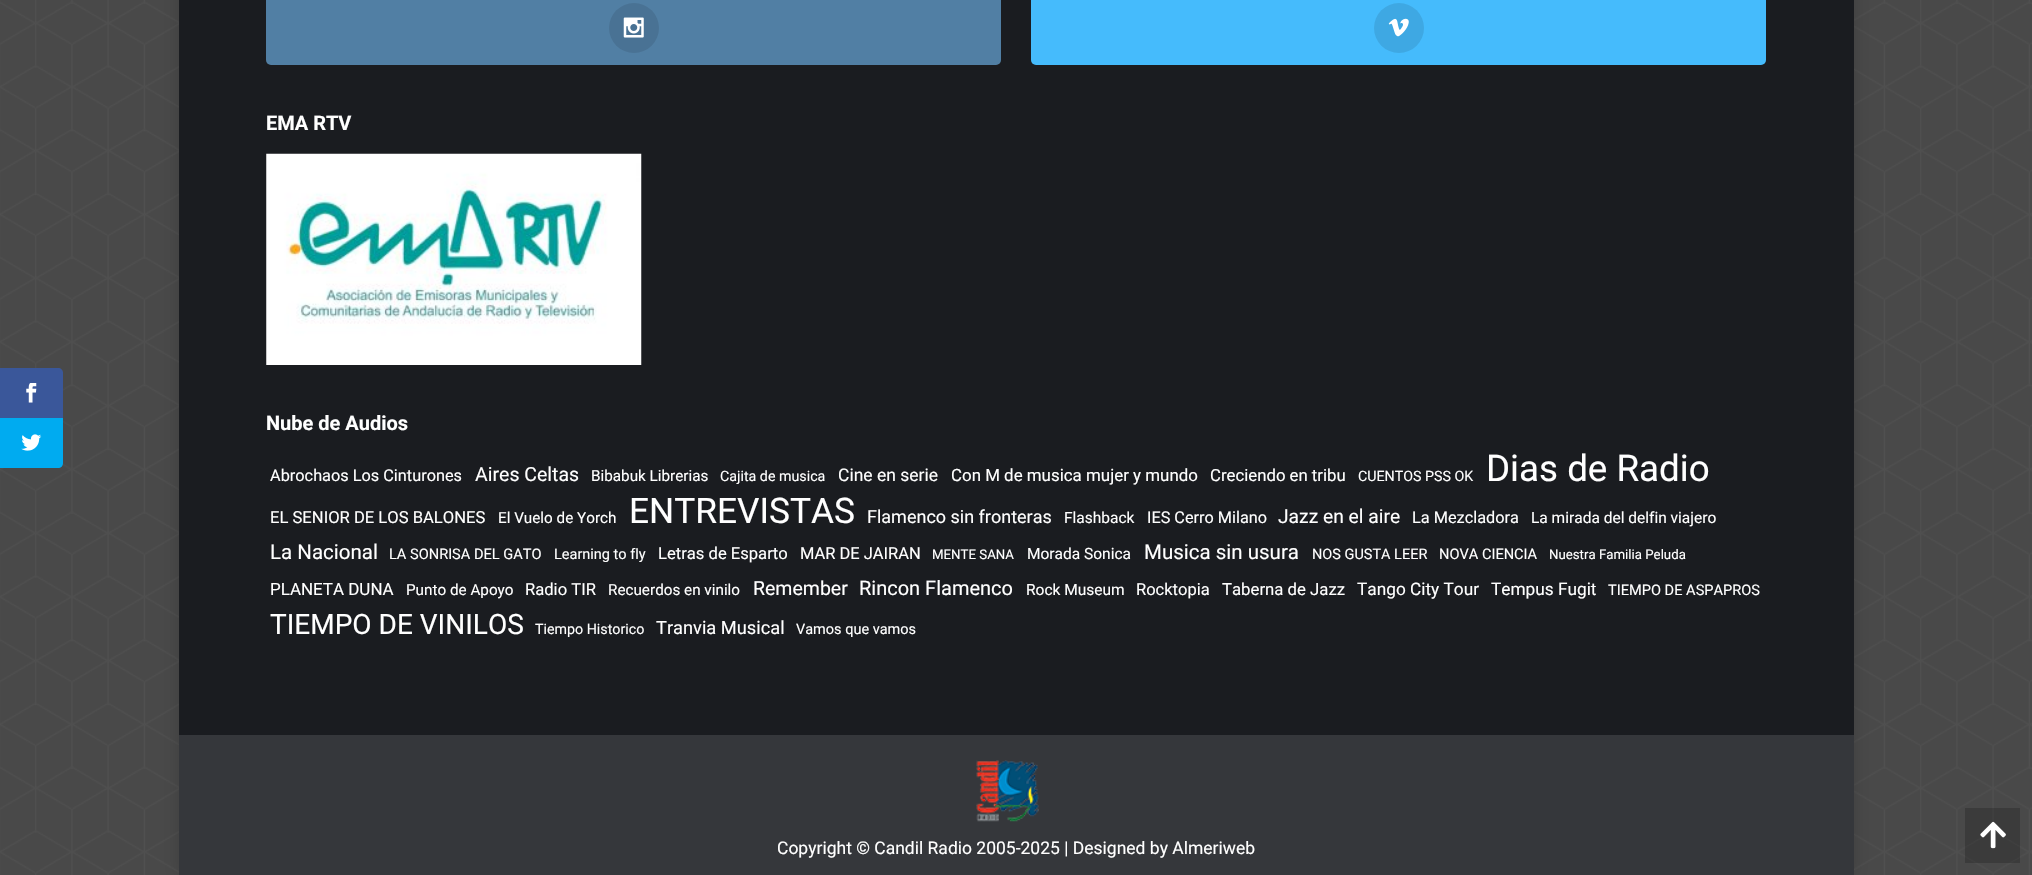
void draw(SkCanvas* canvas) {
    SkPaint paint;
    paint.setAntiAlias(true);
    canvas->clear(0xFF494949);
    canvas->drawImageRect(SkImages::DeferredFromEncodedData(SkData::MakeFromFileName("img1.png")), SkRect::MakeXYWH(0, 0, 2032, 875), SkSamplingOptions());
    paint.setColor(0xFF3A579A);
    canvas->drawPath(SkPathBuilder().moveTo(0, 368).lineTo(58, 368).cubicTo(61, 368, 63, 370, 63, 373).lineTo(63, 418).lineTo(0, 418).close().detach(), paint);
    canvas->drawImageRect(SkImages::DeferredFromEncodedData(SkData::MakeFromFileName("img2.png")), SkRect::MakeXYWH(26, 383, 11, 20), SkSamplingOptions());
    paint.setColor(0xFF00ABF0);
    canvas->drawPath(SkPathBuilder().moveTo(0, 418).lineTo(63, 418).lineTo(63, 463).cubicTo(63, 466, 61, 468, 58, 468).lineTo(0, 468).close().detach(), paint);
    canvas->drawImageRect(SkImages::DeferredFromEncodedData(SkData::MakeFromFileName("img3.png")), SkRect::MakeXYWH(21, 434, 21, 17), SkSamplingOptions());
    paint.setColor(0x26000000);
    paint.setMaskFilter(SkMaskFilter::MakeBlur(kNormal_SkBlurStyle, 7.5f));
    canvas->drawRect(SkRect::MakeXYWH(179, -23, 1675, 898), paint);
    paint.setMaskFilter(nullptr);
    paint.setColor(0xFF1A1C20);
    canvas->drawRect(SkRect::MakeXYWH(179, 0, 1675, 735), paint);
    paint.setColor(0xFF517FA4);
    canvas->drawRoundRect(SkRect::MakeXYWH(266, -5, 735, 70), 5, 5, paint);
    paint.setColor(0xFF497294);
    canvas->drawCircle(634, 28, 25, paint);
    canvas->drawImageRect(SkImages::DeferredFromEncodedData(SkData::MakeFromFileName("img4.png")), SkRect::MakeXYWH(623, 17, 21, 21), SkSamplingOptions());
    paint.setColor(0xFF45BBFC);
    canvas->drawRoundRect(SkRect::MakeXYWH(1031, -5, 735, 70), 5, 5, paint);
    paint.setColor(0xFF3EA8E3);
    canvas->drawCircle(1399, 28, 25, paint);
    canvas->drawImageRect(SkImages::DeferredFromEncodedData(SkData::MakeFromFileName("img5.png")), SkRect::MakeXYWH(1388, 18, 21, 19), SkSamplingOptions());
    SkFont font1(fontMgr->matchFamilyStyle("Roboto", SkFontStyle::Bold()), 20);
    font1.setSubpixel(true);
    paint.setColor(0xFFFFFFFF);
    canvas->drawString("EMA RTV", 266, 130, font1, paint);
    canvas->drawImageRect(SkImages::DeferredFromEncodedData(SkData::MakeFromFileName("img6.png")), SkRect::MakeXYWH(266, 153, 376, 212), SkSamplingOptions());
    canvas->drawString("Nube de Audios", 266, 430, font1, paint);
    SkFont font2(fontMgr->matchFamilyStyle("Roboto", SkFontStyle::Normal()), 16.3f);
    font2.setSubpixel(true);
    canvas->drawString("Abrochaos Los Cinturones", 270, 481, font2, paint);
    SkFont font3(fontMgr->matchFamilyStyle("Roboto", SkFontStyle::Normal()), 19.5f);
    font3.setSubpixel(true);
    canvas->drawString("Aires Celtas", 475, 481, font3, paint);
    SkFont font4(fontMgr->matchFamilyStyle("Roboto", SkFontStyle::Normal()), 15.25f);
    font4.setSubpixel(true);
    canvas->drawString("Bibabuk Librerias", 591, 481, font4, paint);
    SkFont font5(fontMgr->matchFamilyStyle("Roboto", SkFontStyle::Normal()), 14.25f);
    font5.setSubpixel(true);
    canvas->drawString("Cajita de musica", 720, 481, font5, paint);
    SkFont font6(fontMgr->matchFamilyStyle("Roboto", SkFontStyle::Normal()), 17.5f);
    font6.setSubpixel(true);
    canvas->drawString("Cine en serie", 838, 481, font6, paint);
    SkFont font7(fontMgr->matchFamilyStyle("Roboto", SkFontStyle::Normal()), 16.9f);
    font7.setSubpixel(true);
    canvas->drawString("Con M de musica mujer y mundo", 951, 481, font7, paint);
    SkFont font8(fontMgr->matchFamilyStyle("Roboto", SkFontStyle::Normal()), 16.75f);
    font8.setSubpixel(true);
    canvas->drawString("Creciendo en tribu", 1210, 481, font8, paint);
    canvas->drawString("CUENTOS PSS OK", 1358, 481, font5, paint);
    SkFont font9(fontMgr->matchFamilyStyle("Roboto", SkFontStyle::Normal()), 36.75f);
    font9.setSubpixel(true);
    canvas->drawString("Dias de Radio", 1486, 481, font9, paint);
    SkFont font10(fontMgr->matchFamilyStyle("Roboto", SkFontStyle::Normal()), 16.6f);
    font10.setSubpixel(true);
    canvas->drawString("EL SENIOR DE LOS BALONES", 270, 523, font10, paint);
    canvas->drawString("El Vuelo de Yorch", 498, 523, font4, paint);
    SkFont font11(fontMgr->matchFamilyStyle("Roboto", SkFontStyle::Normal()), 35.25f);
    font11.setSubpixel(true);
    canvas->drawString("ENTREVISTAS", 629, 523, font11, paint);
    SkFont font12(fontMgr->matchFamilyStyle("Roboto", SkFontStyle::Normal()), 18);
    font12.setSubpixel(true);
    canvas->drawString("Flamenco sin fronteras", 867, 523, font12, paint);
    SkFont font13(fontMgr->matchFamilyStyle("Roboto", SkFontStyle::Normal()), 15.5f);
    font13.setSubpixel(true);
    canvas->drawString("Flashback", 1064, 523, font13, paint);
    SkFont font14(fontMgr->matchFamilyStyle("Roboto", SkFontStyle::Normal()), 16.25f);
    font14.setSubpixel(true);
    canvas->drawString("IES Cerro Milano", 1147, 523, font14, paint);
    SkFont font15(fontMgr->matchFamilyStyle("Roboto", SkFontStyle::Normal()), 19.25f);
    font15.setSubpixel(true);
    canvas->drawString("Jazz en el aire", 1278, 523, font15, paint);
    canvas->drawString("La Mezcladora", 1412, 523, font2, paint);
    canvas->drawString("La mirada del delfin viajero", 1531, 523, font13, paint);
    SkFont font16(fontMgr->matchFamilyStyle("Roboto", SkFontStyle::Normal()), 20.5f);
    font16.setSubpixel(true);
    canvas->drawString("La Nacional", 270, 559, font16, paint);
    SkFont font17(fontMgr->matchFamilyStyle("Roboto", SkFontStyle::Normal()), 14.6f);
    font17.setSubpixel(true);
    canvas->drawString("LA SONRISA DEL GATO", 389, 559, font17, paint);
    SkFont font18(fontMgr->matchFamilyStyle("Roboto", SkFontStyle::Normal()), 14.5f);
    font18.setSubpixel(true);
    canvas->drawString("Learning to fly", 554, 559, font18, paint);
    canvas->drawString("Letras de Esparto", 658, 559, font10, paint);
    SkFont font19(fontMgr->matchFamilyStyle("Roboto", SkFontStyle::Normal()), 16.5f);
    font19.setSubpixel(true);
    canvas->drawString("MAR DE JAIRAN", 800, 559, font19, paint);
    SkFont font20(fontMgr->matchFamilyStyle("Roboto", SkFontStyle::Normal()), 13.25f);
    font20.setSubpixel(true);
    canvas->drawString("MENTE SANA", 932, 559, font20, paint);
    canvas->drawString("Morada Sonica", 1027, 559, font13, paint);
    canvas->drawString("Musica sin usura", 1144, 559, font16, paint);
    canvas->drawString("NOS GUSTA LEER", 1312, 559, font18, paint);
    canvas->drawString("NOVA CIENCIA", 1439, 559, font17, paint);
    canvas->drawString("Nuestra Familia Peluda", 1549, 559, font20, paint);
    SkFont font21(fontMgr->matchFamilyStyle("Roboto", SkFontStyle::Normal()), 17);
    font21.setSubpixel(true);
    canvas->drawString("PLANETA DUNA", 270, 595, font21, paint);
    canvas->drawString("Punto de Apoyo", 406, 595, font4, paint);
    canvas->drawString("Radio TIR", 525, 595, font10, paint);
    canvas->drawString("Recuerdos en vinilo", 608, 595, font4, paint);
    canvas->drawString("Remember", 753, 595, font3, paint);
    SkFont font22(fontMgr->matchFamilyStyle("Roboto", SkFontStyle::Normal()), 20);
    font22.setSubpixel(true);
    canvas->drawString("Rincon Flamenco", 859, 595, font22, paint);
    canvas->drawString("Rock Museum", 1026, 595, font13, paint);
    canvas->drawString("Rocktopia", 1136, 595, font19, paint);
    canvas->drawString("Taberna de Jazz", 1222, 595, font8, paint);
    SkFont font23(fontMgr->matchFamilyStyle("Roboto", SkFontStyle::Normal()), 17.25f);
    font23.setSubpixel(true);
    canvas->drawString("Tango City Tour", 1357, 595, font23, paint);
    canvas->drawString("Tempus Fugit", 1491, 595, font23, paint);
    canvas->drawString("TIEMPO DE ASPAPROS", 1608, 595, font17, paint);
    SkFont font24(fontMgr->matchFamilyStyle("Roboto", SkFontStyle::Normal()), 28);
    font24.setSubpixel(true);
    canvas->drawString("TIEMPO DE VINILOS", 270, 634, font24, paint);
    canvas->drawString("Tiempo Historico", 535, 634, font5, paint);
    SkFont font25(fontMgr->matchFamilyStyle("Roboto", SkFontStyle::Normal()), 18.25f);
    font25.setSubpixel(true);
    canvas->drawString("Tranvia Musical", 656, 634, font25, paint);
    canvas->drawString("Vamos que vamos", 796, 634, font18, paint);
    paint.setColor(0xFF35373B);
    canvas->drawRect(SkRect::MakeXYWH(179, 735, 1675, 140), paint);
    canvas->drawImageRect(SkImages::DeferredFromEncodedData(SkData::MakeFromFileName("img7.png")), SkRect::MakeXYWH(976, 760, 63, 62), SkSamplingOptions());
    paint.setColor(0xFFFFFFFF);
    canvas->drawString("Copyright © Candil Radio 2005-2025 | Designed by Almeriweb", 777, 854, font6, paint);
    paint.setColor(0x33000000);
    canvas->drawRect(SkRect::MakeXYWH(1965, 808, 55, 55), paint);
    canvas->drawImageRect(SkImages::DeferredFromEncodedData(SkData::MakeFromFileName("img8.png")), SkRect::MakeXYWH(1980, 821, 26, 28), SkSamplingOptions());
}
